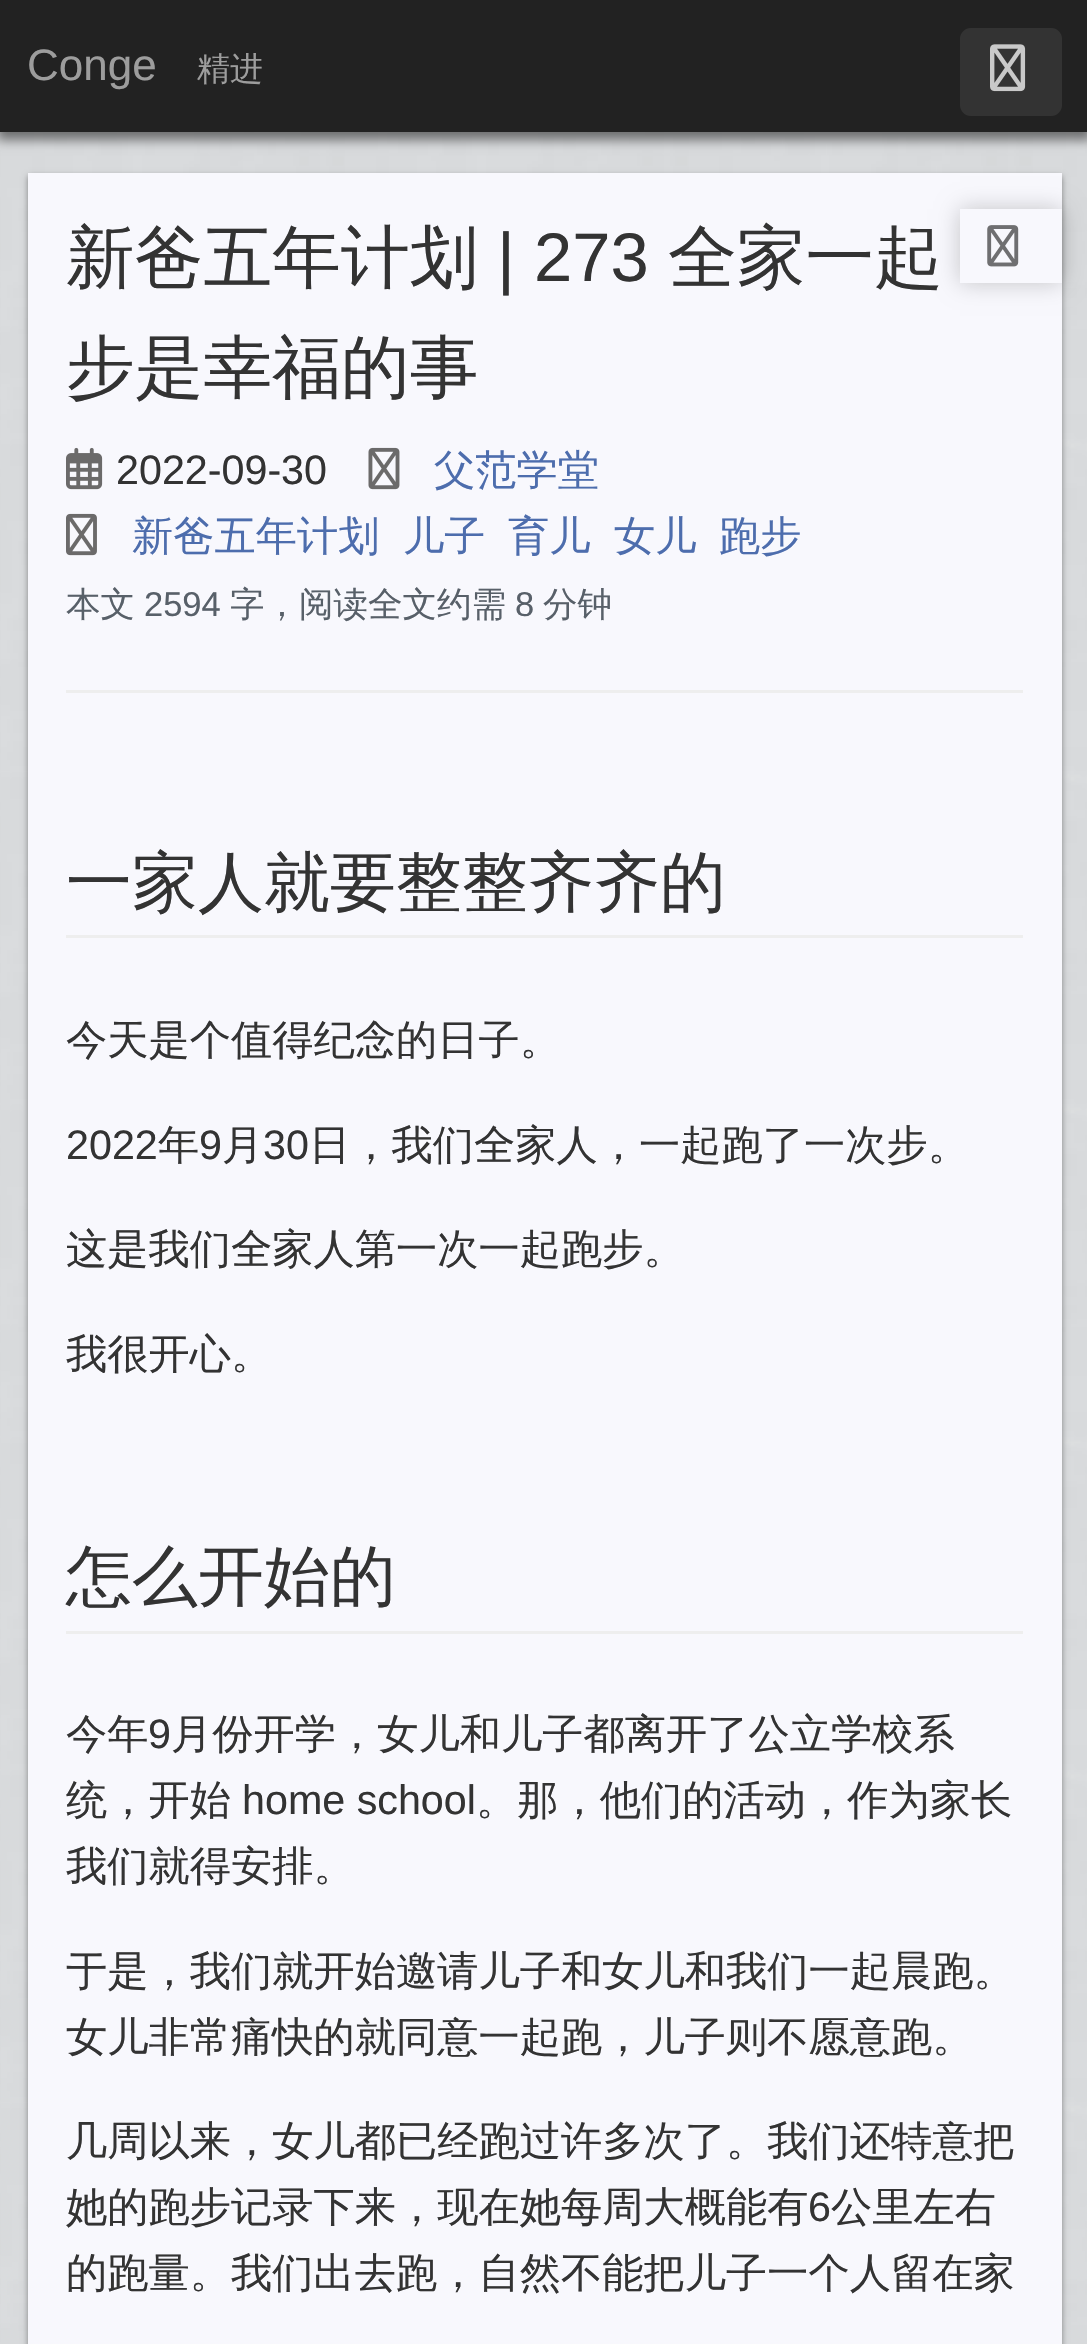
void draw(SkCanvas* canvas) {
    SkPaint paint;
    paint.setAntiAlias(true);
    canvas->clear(0xFFFFFFFF);
    canvas->drawImageRect(SkImages::DeferredFromEncodedData(SkData::MakeFromFileName("img1.png")), SkRect::MakeXYWH(0, 132, 1087, 2212), SkSamplingOptions());
    paint.setColor(0x80000000);
    paint.setMaskFilter(SkMaskFilter::MakeBlur(kNormal_SkBlurStyle, 5.5f));
    canvas->drawRect(SkRect::MakeXYWH(-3, 3, 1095, 137), paint);
    paint.setMaskFilter(nullptr);
    paint.setColor(0xFF222222);
    canvas->drawRect(SkRect::MakeXYWH(0, 0, 1087, 132), paint);
    SkFont font1(fontMgr->matchFamilyStyle("Liberation Sans", SkFontStyle::Normal()), 44);
    font1.setSubpixel(true);
    paint.setColor(0xFF9D9D9D);
    canvas->drawString("Conge", 27, 80, font1, paint);
    SkFont font2(fontMgr->matchFamilyStyle("WenQuanYi Zen Hei", SkFontStyle(500, SkFontStyle::kNormal_Width, SkFontStyle::kUpright_Slant)), 33);
    font2.setSubpixel(true);
    canvas->drawString("精进", 197, 80, font2, paint);
    paint.setColor(0xFF333333);
    canvas->drawRoundRect(SkRect::MakeXYWH(961.5f, 29.5f, 99, 85), 9.5f, 9.5f, paint);
    paint.setStyle(SkPaint::kStroke_Style);
    paint.setStrokeWidth(3);
    canvas->drawRoundRect(SkRect::MakeXYWH(961.5f, 29.5f, 99, 85), 9.5f, 9.5f, paint);
    canvas->drawImageRect(SkImages::DeferredFromEncodedData(SkData::MakeFromFileName("img2.png")), SkRect::MakeXYWH(990, 44, 36, 48), SkSamplingOptions());
    paint.setStyle(SkPaint::kFill_Style);
    paint.setColor(0x66000000);
    paint.setMaskFilter(SkMaskFilter::MakeBlur(kNormal_SkBlurStyle, 3));
    canvas->drawRect(SkRect::MakeXYWH(28, 176, 1034, 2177), paint);
    paint.setMaskFilter(nullptr);
    paint.setColor(0xFFF8F8FD);
    canvas->drawRect(SkRect::MakeXYWH(28, 173, 1034, 2171), paint);
    canvas->save();
    canvas->clipPath(SkPathBuilder(SkPathFillType::kEvenOdd).moveTo(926, 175).lineTo(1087, 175).lineTo(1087, 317).lineTo(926, 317).close().moveTo(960, 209).lineTo(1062, 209).lineTo(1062, 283).lineTo(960, 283).close().detach(), true);
    paint.setColor(0x36000000);
    paint.setMaskFilter(SkMaskFilter::MakeBlur(kNormal_SkBlurStyle, 11));
    canvas->drawRect(SkRect::MakeXYWH(960, 209, 102, 74), paint);
    paint.setMaskFilter(nullptr);
    canvas->restore();
    paint.setColor(0xB3F8F8FD);
    canvas->drawRect(SkRect::MakeXYWH(1061, 209, 1, 74), paint);
    canvas->drawImageRect(SkImages::DeferredFromEncodedData(SkData::MakeFromFileName("img3.png")), SkRect::MakeXYWH(987, 225, 32, 42), SkSamplingOptions());
    SkFont font3(fontMgr->matchFamilyStyle("WenQuanYi Zen Hei", SkFontStyle(500, SkFontStyle::kNormal_Width, SkFontStyle::kUpright_Slant)), 68.75f);
    font3.setSubpixel(true);
    paint.setColor(0xFF333333);
    canvas->drawString("新爸五年计划", 66, 281, font3, paint);
    SkFont font4(fontMgr->matchFamilyStyle("Liberation Sans", SkFontStyle::Normal()), 68.75f);
    font4.setSubpixel(true);
    canvas->drawString("| 273", 497, 281, font4, paint);
    canvas->drawString("全家一起", 668, 281, font3, paint);
    canvas->drawString("步是幸福的事", 66, 391, font3, paint);
    canvas->drawImageRect(SkImages::DeferredFromEncodedData(SkData::MakeFromFileName("img4.png")), SkRect::MakeXYWH(66, 447, 37, 43), SkSamplingOptions());
    SkFont font5(fontMgr->matchFamilyStyle("Liberation Sans", SkFontStyle::Normal()), 41.25f);
    font5.setSubpixel(true);
    canvas->drawString("2022-09-30", 116, 484, font5, paint);
    canvas->drawImageRect(SkImages::DeferredFromEncodedData(SkData::MakeFromFileName("img5.png")), SkRect::MakeXYWH(368, 447, 32, 43), SkSamplingOptions());
    SkFont font6(fontMgr->matchFamilyStyle("WenQuanYi Zen Hei", SkFontStyle(500, SkFontStyle::kNormal_Width, SkFontStyle::kUpright_Slant)), 41.25f);
    font6.setSubpixel(true);
    paint.setColor(0xFF4D6DAD);
    canvas->drawString("父范学堂", 434, 484, font6, paint);
    canvas->drawImageRect(SkImages::DeferredFromEncodedData(SkData::MakeFromFileName("img6.png")), SkRect::MakeXYWH(66, 513, 31, 43), SkSamplingOptions());
    canvas->drawString("新爸五年计划", 132, 550, font6, paint);
    canvas->drawString("儿子", 403, 550, font6, paint);
    canvas->drawString("育儿", 508, 550, font6, paint);
    canvas->drawString("女儿", 614, 550, font6, paint);
    canvas->drawString("跑步", 719, 550, font6, paint);
    SkFont font7(fontMgr->matchFamilyStyle("WenQuanYi Zen Hei", SkFontStyle(500, SkFontStyle::kNormal_Width, SkFontStyle::kUpright_Slant)), 34.5f);
    font7.setSubpixel(true);
    paint.setColor(0xFF586069);
    canvas->drawString("本文", 66, 616, font7, paint);
    SkFont font8(fontMgr->matchFamilyStyle("Liberation Sans", SkFontStyle::Normal()), 34.5f);
    font8.setSubpixel(true);
    canvas->drawString("2594", 144, 616, font8, paint);
    canvas->drawString("字，阅读全文约需", 230, 616, font7, paint);
    canvas->drawString("8", 515, 616, font8, paint);
    canvas->drawString("分钟", 543, 616, font7, paint);
    paint.setColor(0xFFEEEEEE);
    canvas->drawRect(SkRect::MakeXYWH(66, 690, 957, 3), paint);
    canvas->drawRect(SkRect::MakeXYWH(66, 935, 957, 3), paint);
    SkFont font9(fontMgr->matchFamilyStyle("WenQuanYi Zen Hei", SkFontStyle(500, SkFontStyle::kNormal_Width, SkFontStyle::kUpright_Slant)), 66);
    font9.setSubpixel(true);
    paint.setColor(0xFF333333);
    canvas->drawString("一家人就要整整齐齐的", 66, 905, font9, paint);
    canvas->drawString("今天是个值得纪念的日子。", 66, 1054, font6, paint);
    canvas->drawString("2022", 66, 1159, font5, paint);
    canvas->drawString("年", 158, 1159, font6, paint);
    canvas->drawString("9", 199, 1159, font5, paint);
    canvas->drawString("月", 222, 1159, font6, paint);
    canvas->drawString("30", 263, 1159, font5, paint);
    canvas->drawString("日，我们全家人，一起跑了一次步。", 309, 1159, font6, paint);
    canvas->drawString("这是我们全家人第一次一起跑步。", 66, 1263, font6, paint);
    canvas->drawString("我很开心。", 66, 1368, font6, paint);
    paint.setColor(0xFFEEEEEE);
    canvas->drawRect(SkRect::MakeXYWH(66, 1631, 957, 3), paint);
    paint.setColor(0xFF333333);
    canvas->drawString("怎么开始的", 66, 1599, font9, paint);
    canvas->drawString("今年", 66, 1748, font6, paint);
    canvas->drawString("9", 148, 1748, font5, paint);
    canvas->drawString("月份开学，女儿和儿子都离开了公立学校系", 171, 1748, font6, paint);
    canvas->drawString("统，开始", 66, 1814, font6, paint);
    canvas->drawString("home school", 242, 1814, font5, paint);
    canvas->drawString("。那，他们的活动，作为家长", 476, 1814, font6, paint);
    canvas->drawString("我们就得安排。", 66, 1880, font6, paint);
    canvas->drawString("于是，我们就开始邀请儿子和女儿和我们一起晨跑。", 66, 1985, font6, paint);
    canvas->drawString("女儿非常痛快的就同意一起跑，儿子则不愿意跑。", 66, 2051, font6, paint);
    canvas->drawString("几周以来，女儿都已经跑过许多次了。我们还特意把", 66, 2155, font6, paint);
    canvas->drawString("她的跑步记录下来，现在她每周大概能有", 66, 2221, font6, paint);
    canvas->drawString("6", 808, 2221, font5, paint);
    canvas->drawString("公里左右", 831, 2221, font6, paint);
    canvas->drawString("的跑量。我们出去跑，自然不能把儿子一个人留在家", 66, 2287, font6, paint);
}
